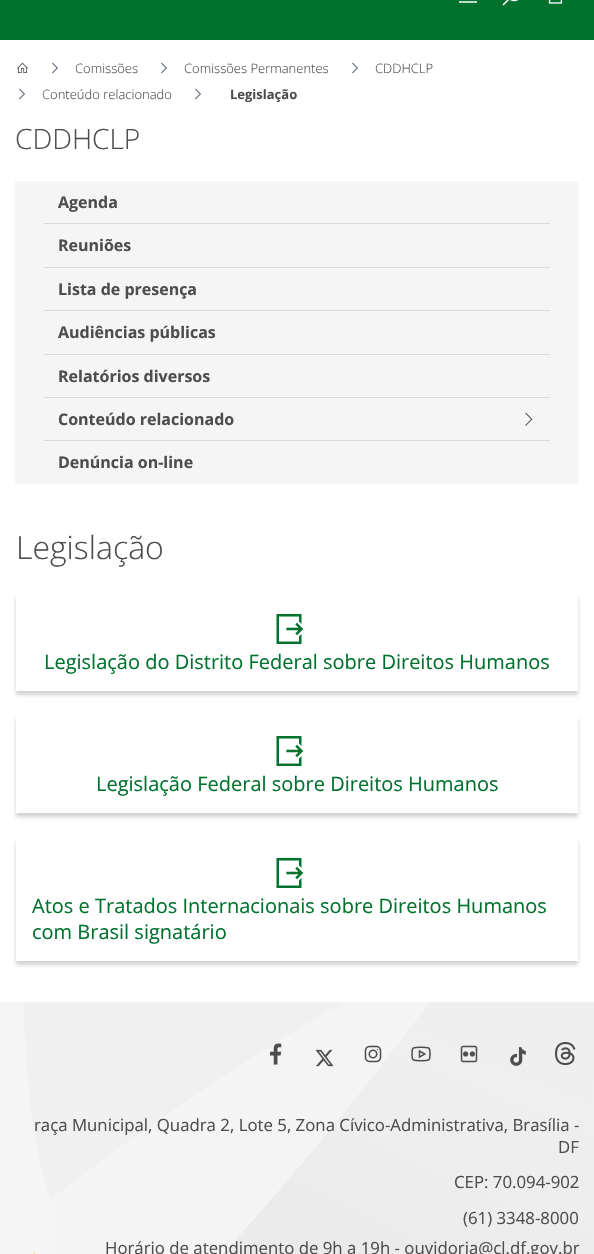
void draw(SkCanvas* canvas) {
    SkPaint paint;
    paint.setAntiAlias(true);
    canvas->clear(0xFFFFFFFF);
    paint.setColor(0xFF00722D);
    canvas->drawRect(SkRect::MakeXYWH(0, 0, 594, 40), paint);
    paint.setColor(0xFFBFDCCB);
    canvas->drawRect(SkRect::MakeXYWH(459, 1, 18, 2), paint);
    canvas->drawImageRect(SkImages::DeferredFromEncodedData(SkData::MakeFromFileName("img1.png")), SkRect::MakeXYWH(502, 0, 17, 6), SkSamplingOptions());
    canvas->drawImageRect(SkImages::DeferredFromEncodedData(SkData::MakeFromFileName("img2.png")), SkRect::MakeXYWH(548, 0, 15, 4), SkSamplingOptions());
    canvas->drawImageRect(SkImages::DeferredFromEncodedData(SkData::MakeFromFileName("img3.png")), SkRect::MakeXYWH(17, 62, 11, 11), SkSamplingOptions());
    canvas->drawImageRect(SkImages::DeferredFromEncodedData(SkData::MakeFromFileName("img4.png")), SkRect::MakeXYWH(52, 62, 6, 12), SkSamplingOptions());
    SkFont font1(fontMgr->matchFamilyStyle("Open Sans", SkFontStyle(300, SkFontStyle::kNormal_Width, SkFontStyle::kUpright_Slant)), 13);
    font1.setSubpixel(true);
    paint.setColor(0xFF4F4C4D);
    canvas->drawString("Comissões", 75, 73, font1, paint);
    canvas->drawImageRect(SkImages::DeferredFromEncodedData(SkData::MakeFromFileName("img4.png")), SkRect::MakeXYWH(161, 62, 6, 12), SkSamplingOptions());
    canvas->drawString("Comissões Permanentes", 184, 73, font1, paint);
    canvas->drawImageRect(SkImages::DeferredFromEncodedData(SkData::MakeFromFileName("img4.png")), SkRect::MakeXYWH(352, 62, 6, 12), SkSamplingOptions());
    canvas->drawString("CDDHCLP", 375, 73, font1, paint);
    canvas->drawImageRect(SkImages::DeferredFromEncodedData(SkData::MakeFromFileName("img4.png")), SkRect::MakeXYWH(19, 88, 6, 12), SkSamplingOptions());
    canvas->drawString("Conteúdo relacionado", 42, 99, font1, paint);
    canvas->drawImageRect(SkImages::DeferredFromEncodedData(SkData::MakeFromFileName("img4.png")), SkRect::MakeXYWH(195, 88, 6, 12), SkSamplingOptions());
    SkFont font2(fontMgr->matchFamilyStyle("Open Sans", SkFontStyle::Bold()), 13);
    font2.setSubpixel(true);
    canvas->drawString("Legislação", 230, 99, font2, paint);
    SkFont font3(fontMgr->matchFamilyStyle("Open Sans", SkFontStyle(300, SkFontStyle::kNormal_Width, SkFontStyle::kUpright_Slant)), 28);
    font3.setSubpixel(true);
    canvas->drawString("CDDHCLP", 15, 149, font3, paint);
    paint.setColor(0xFFF5F5F5);
    canvas->drawRect(SkRect::MakeXYWH(15, 181, 564, 303), paint);
    SkFont font4(fontMgr->matchFamilyStyle("Open Sans", SkFontStyle::Bold()), 16);
    font4.setSubpixel(true);
    paint.setColor(0xFF4F4C4D);
    canvas->drawString("Agenda", 58, 208, font4, paint);
    paint.setColor(0xFFD9D9D9);
    canvas->drawRect(SkRect::MakeXYWH(44, 223, 506, 1), paint);
    paint.setColor(0xFF4F4C4D);
    canvas->drawString("Reuniões", 58, 251, font4, paint);
    paint.setColor(0xFFD9D9D9);
    canvas->drawRect(SkRect::MakeXYWH(44, 267, 506, 1), paint);
    paint.setColor(0xFF4F4C4D);
    canvas->drawString("Lista de presença", 58, 295, font4, paint);
    paint.setColor(0xFFD9D9D9);
    canvas->drawRect(SkRect::MakeXYWH(44, 310, 506, 1), paint);
    paint.setColor(0xFF4F4C4D);
    canvas->drawString("Audiências públicas", 58, 338, font4, paint);
    paint.setColor(0xFFD9D9D9);
    canvas->drawRect(SkRect::MakeXYWH(44, 354, 506, 1), paint);
    paint.setColor(0xFF4F4C4D);
    canvas->drawString("Relatórios diversos", 58, 382, font4, paint);
    paint.setColor(0xFFD9D9D9);
    canvas->drawRect(SkRect::MakeXYWH(44, 397, 506, 1), paint);
    paint.setColor(0xFF4F4C4D);
    canvas->drawString("Conteúdo relacionado", 58, 425, font4, paint);
    canvas->drawImageRect(SkImages::DeferredFromEncodedData(SkData::MakeFromFileName("img5.png")), SkRect::MakeXYWH(525, 412, 8, 14), SkSamplingOptions());
    paint.setColor(0xFFD9D9D9);
    canvas->drawRect(SkRect::MakeXYWH(44, 440, 506, 1), paint);
    paint.setColor(0xFF4F4C4D);
    canvas->drawString("Denúncia on-line", 58, 468, font4, paint);
    SkFont font5(fontMgr->matchFamilyStyle("Open Sans", SkFontStyle(300, SkFontStyle::kNormal_Width, SkFontStyle::kUpright_Slant)), 32);
    font5.setSubpixel(true);
    canvas->drawString("Legislação", 16, 559, font5, paint);
    canvas->save();
    canvas->clipPath(SkPathBuilder(SkPathFillType::kEvenOdd).moveTo(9, 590).lineTo(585, 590).lineTo(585, 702).lineTo(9, 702).close().moveTo(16, 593).lineTo(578, 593).lineTo(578, 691).lineTo(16, 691).close().detach(), true);
    paint.setColor(0x404F4C4D);
    paint.setMaskFilter(SkMaskFilter::MakeBlur(kNormal_SkBlurStyle, 2));
    canvas->drawRect(SkRect::MakeXYWH(16, 597, 562, 98), paint);
    paint.setMaskFilter(nullptr);
    canvas->restore();
    canvas->drawImageRect(SkImages::DeferredFromEncodedData(SkData::MakeFromFileName("img6.png")), SkRect::MakeXYWH(276, 614, 28, 30), SkSamplingOptions());
    SkFont font6(fontMgr->matchFamilyStyle("Open Sans", SkFontStyle::Normal()), 20);
    font6.setSubpixel(true);
    paint.setColor(0xFF00722D);
    canvas->drawString("Legislação do Distrito Federal sobre Direitos Humanos", 44, 669, font6, paint);
    canvas->save();
    canvas->clipPath(SkPathBuilder(SkPathFillType::kEvenOdd).moveTo(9, 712).lineTo(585, 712).lineTo(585, 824).lineTo(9, 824).close().moveTo(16, 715).lineTo(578, 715).lineTo(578, 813).lineTo(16, 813).close().detach(), true);
    paint.setColor(0x404F4C4D);
    paint.setMaskFilter(SkMaskFilter::MakeBlur(kNormal_SkBlurStyle, 2));
    canvas->drawRect(SkRect::MakeXYWH(16, 719, 562, 98), paint);
    paint.setMaskFilter(nullptr);
    canvas->restore();
    canvas->drawImageRect(SkImages::DeferredFromEncodedData(SkData::MakeFromFileName("img6.png")), SkRect::MakeXYWH(276, 736, 28, 30), SkSamplingOptions());
    paint.setColor(0xFF00722D);
    canvas->drawString("Legislação Federal sobre Direitos Humanos", 96, 791, font6, paint);
    canvas->save();
    canvas->clipPath(SkPathBuilder(SkPathFillType::kEvenOdd).moveTo(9, 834).lineTo(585, 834).lineTo(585, 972).lineTo(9, 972).close().moveTo(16, 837).lineTo(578, 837).lineTo(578, 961).lineTo(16, 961).close().detach(), true);
    paint.setColor(0x404F4C4D);
    paint.setMaskFilter(SkMaskFilter::MakeBlur(kNormal_SkBlurStyle, 2));
    canvas->drawRect(SkRect::MakeXYWH(16, 841, 562, 124), paint);
    paint.setMaskFilter(nullptr);
    canvas->restore();
    canvas->drawImageRect(SkImages::DeferredFromEncodedData(SkData::MakeFromFileName("img6.png")), SkRect::MakeXYWH(276, 858, 28, 30), SkSamplingOptions());
    paint.setColor(0xFF00722D);
    canvas->drawString("Atos e Tratados Internacionais sobre Direitos Humanos", 32, 913, font6, paint);
    canvas->drawString("com Brasil signatário", 32, 939, font6, paint);
    canvas->drawImageRect(SkImages::DeferredFromEncodedData(SkData::MakeFromFileName("img7.png")), SkRect::MakeXYWH(23, 1002, 571, 252), SkSamplingOptions());
    SkFont font7(fontMgr->matchFamilyStyle("Open Sans", SkFontStyle::Normal()), 16.8f);
    font7.setSubpixel(true);
    paint.setColor(0xFF4F4C4D);
    canvas->drawString("raça Municipal, Quadra 2, Lote 5, Zona Cívico-Administrativa, Brasília -", 34, 1131, font7, paint);
    canvas->drawImageRect(SkImages::DeferredFromEncodedData(SkData::MakeFromFileName("img8.png")), SkRect::MakeXYWH(0, 1002, 50, 252), SkSamplingOptions());
    canvas->drawImageRect(SkImages::DeferredFromEncodedData(SkData::MakeFromFileName("img9.png")), SkRect::MakeXYWH(270, 1043, 12, 22), SkSamplingOptions());
    canvas->drawImageRect(SkImages::DeferredFromEncodedData(SkData::MakeFromFileName("img10.png")), SkRect::MakeXYWH(315, 1049, 19, 18), SkSamplingOptions());
    canvas->drawImageRect(SkImages::DeferredFromEncodedData(SkData::MakeFromFileName("img11.png")), SkRect::MakeXYWH(364, 1045, 18, 18), SkSamplingOptions());
    canvas->drawImageRect(SkImages::DeferredFromEncodedData(SkData::MakeFromFileName("img12.png")), SkRect::MakeXYWH(411, 1046, 20, 16), SkSamplingOptions());
    canvas->drawImageRect(SkImages::DeferredFromEncodedData(SkData::MakeFromFileName("img13.png")), SkRect::MakeXYWH(460, 1045, 18, 18), SkSamplingOptions());
    canvas->drawImageRect(SkImages::DeferredFromEncodedData(SkData::MakeFromFileName("img14.png")), SkRect::MakeXYWH(510, 1047, 16, 19), SkSamplingOptions());
    canvas->drawImageRect(SkImages::DeferredFromEncodedData(SkData::MakeFromFileName("img15.png")), SkRect::MakeXYWH(555, 1042, 21, 23), SkSamplingOptions());
    canvas->drawString("DF", 558, 1153, font7, paint);
    canvas->drawString("CEP: 70.094-902", 454, 1188, font7, paint);
    canvas->drawString("(61) 3348-8000", 463, 1224, font7, paint);
    canvas->drawString("Horário de atendimento de 9h a 19h - ouvidoria@cl.df.gov.br", 105, 1254, font7, paint);
}
